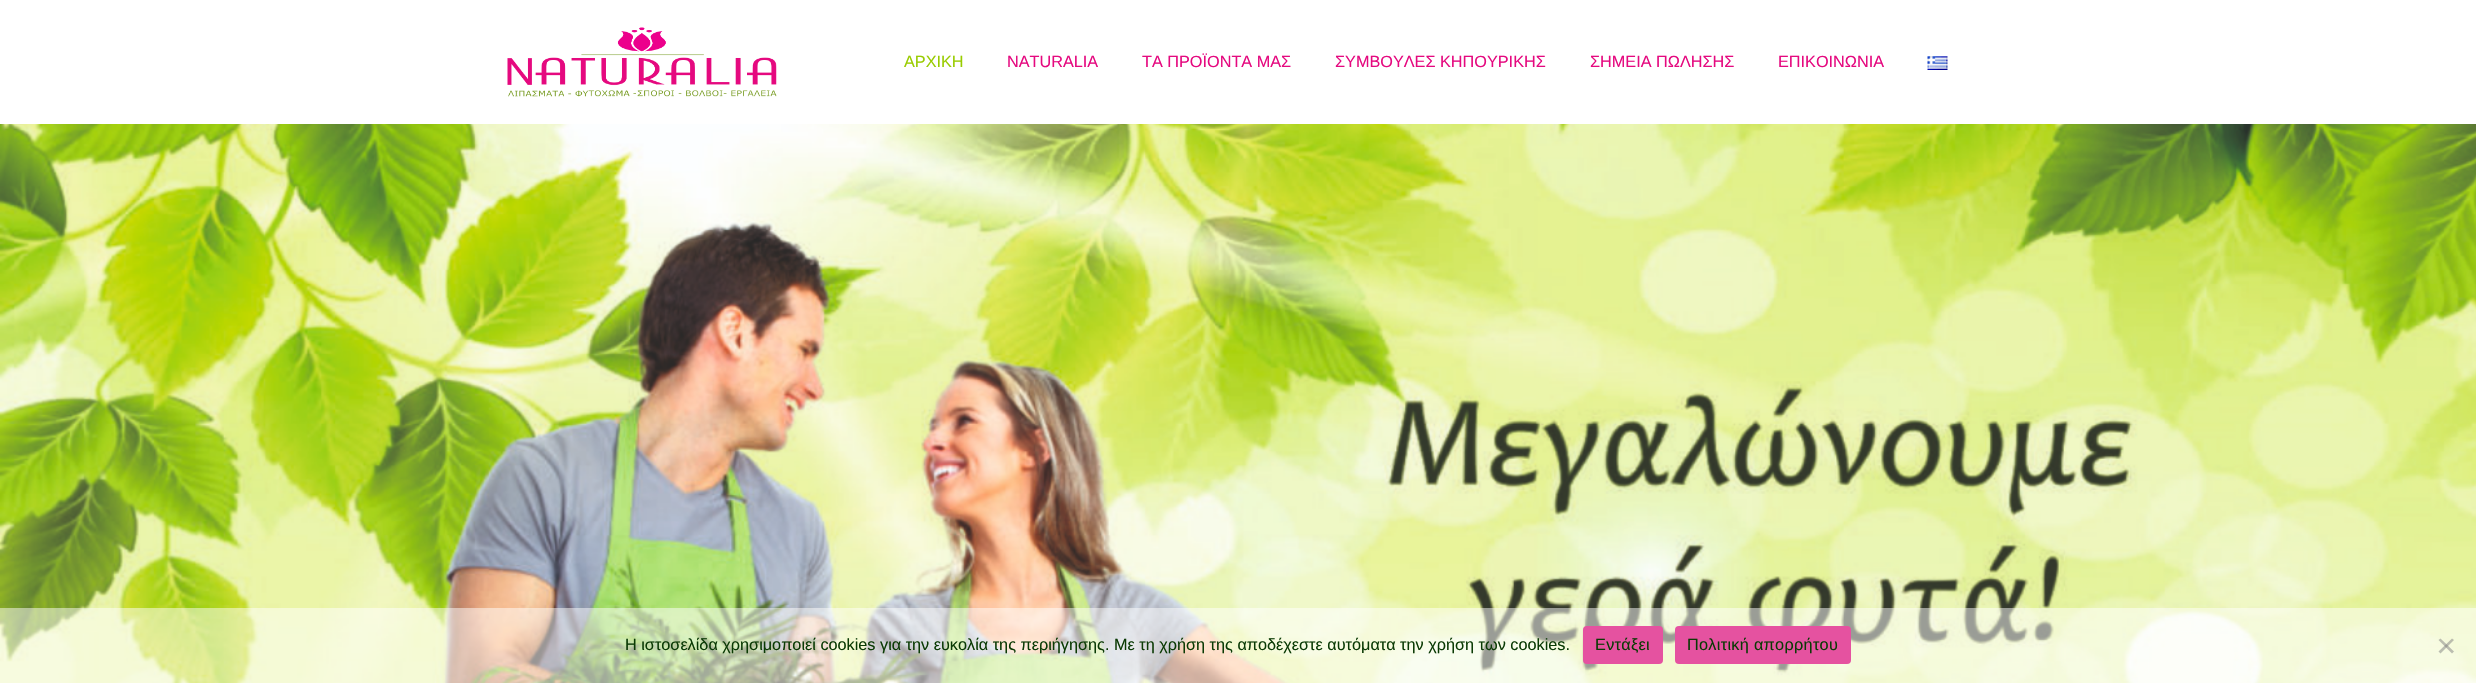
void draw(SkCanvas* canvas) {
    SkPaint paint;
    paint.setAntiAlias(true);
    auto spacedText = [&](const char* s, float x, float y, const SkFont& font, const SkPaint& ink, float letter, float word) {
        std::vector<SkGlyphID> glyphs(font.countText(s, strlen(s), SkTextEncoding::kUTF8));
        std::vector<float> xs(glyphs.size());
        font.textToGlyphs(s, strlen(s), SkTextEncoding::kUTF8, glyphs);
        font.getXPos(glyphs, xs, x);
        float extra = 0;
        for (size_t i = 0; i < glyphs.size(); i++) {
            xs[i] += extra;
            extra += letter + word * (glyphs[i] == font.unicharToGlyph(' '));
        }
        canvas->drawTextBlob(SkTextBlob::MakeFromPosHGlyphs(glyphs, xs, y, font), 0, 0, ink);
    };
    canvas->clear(0xFFFFFFFF);
    canvas->drawImageRect(SkImages::DeferredFromEncodedData(SkData::MakeFromFileName("img1.png")), SkRect::MakeXYWH(507, 27, 270, 70), SkSamplingOptions());
    SkFont font1(fontMgr->matchFamilyStyle("Liberation Sans", SkFontStyle::Normal()), 16.25f);
    font1.setSubpixel(true);
    paint.setColor(0xFF99CC00);
    canvas->drawString("ΑΡΧΙΚΗ", 904, 67, font1, paint);
    paint.setColor(0xFFE5097F);
    canvas->drawString("NATURALIA", 1007, 67, font1, paint);
    canvas->drawString("ΤΑ ΠΡΟΪΟΝΤΑ ΜΑΣ", 1142, 67, font1, paint);
    canvas->drawString("ΣΥΜΒΟΥΛΕΣ ΚΗΠΟΥΡΙΚΗΣ", 1335, 67, font1, paint);
    canvas->drawString("ΣΗΜΕΙΑ ΠΩΛΗΣΗΣ", 1590, 67, font1, paint);
    canvas->drawString("ΕΠΙΚΟΙΝΩΝΙΑ", 1778, 67, font1, paint);
    canvas->drawImageRect(SkImages::DeferredFromEncodedData(SkData::MakeFromFileName("img2.png")), SkRect::MakeXYWH(1927, 56, 21, 14), SkSamplingOptions());
    canvas->drawImageRect(SkImages::DeferredFromEncodedData(SkData::MakeFromFileName("img3.png")), SkRect::MakeXYWH(0, 124, 2476, 559), SkSamplingOptions());
    paint.setColor(0x80FFFFFF);
    canvas->drawRect(SkRect::MakeXYWH(0, 608, 2476, 75), paint);
    paint.setColor(0xFF0A3A04);
    canvas->drawString("Η ιστοσελίδα χρησιμοποιεί cookies για την ευκολία της περιήγησης. Με τη χρήση της αποδέχεστε αυτόματα την χρήση των cookies.", 625, 650, font1, paint);
    paint.setColor(0xFFE552A0);
    canvas->drawRoundRect(SkRect::MakeXYWH(1583, 626, 80, 38), 4, 4, paint);
    paint.setColor(0xFF0A3A04);
    spacedText("Εντάξει", 1595, 650, font1, paint, 0.3f, 0);
    paint.setColor(0xFFE552A0);
    canvas->drawRoundRect(SkRect::MakeXYWH(1675, 626, 176, 38), 4, 4, paint);
    paint.setColor(0xFF0A3A04);
    spacedText("Πολιτική απορρήτου", 1687, 650, font1, paint, 0.3f, 0);
    paint.setColor(0x80808080);
    canvas->drawPath(SkPathBuilder().moveTo(2452, 638.5f).lineTo(2454, 640).lineTo(2440.5f, 653.5f).lineTo(2438.5f, 651.5f).close().detach(), paint);
    canvas->drawPath(SkPathBuilder().moveTo(2438.5f, 640).lineTo(2440.5f, 638.5f).lineTo(2454, 651.5f).lineTo(2452, 653.5f).close().detach(), paint);
}
